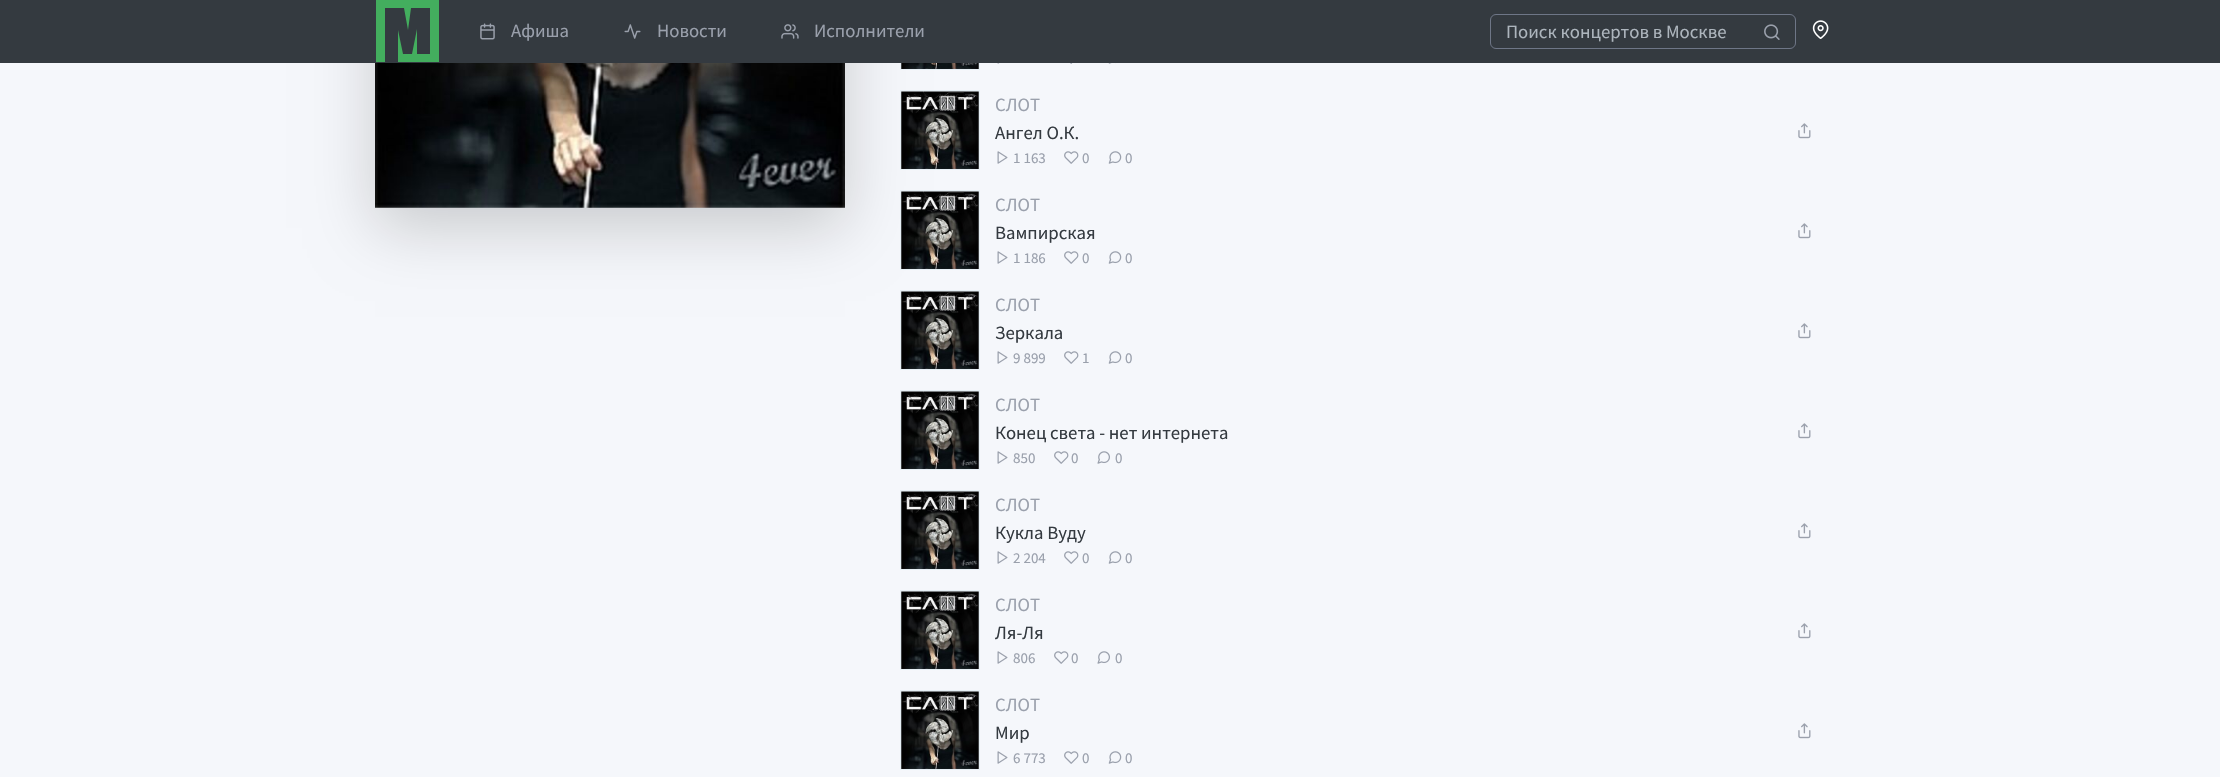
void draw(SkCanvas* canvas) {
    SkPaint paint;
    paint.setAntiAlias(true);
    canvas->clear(0xFFF5F7FB);
    paint.setColor(0x2E000000);
    paint.setMaskFilter(SkMaskFilter::MakeBlur(kNormal_SkBlurStyle, 30));
    canvas->drawRect(SkRect::MakeXYWH(375, -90, 470, 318), paint);
    paint.setMaskFilter(nullptr);
    paint.setColor(0xFF343A40);
    canvas->drawRect(SkRect::MakeXYWH(0, 0, 2220, 63), paint);
    paint.setColor(0xFF43AE5E);
    canvas->drawPath(SkPathBuilder().moveTo(376, 0).lineTo(439, 0).lineTo(439, 62).lineTo(398, 62).lineTo(398, 30).lineTo(403, 54).lineTo(412, 54).lineTo(417, 29).lineTo(417, 54).lineTo(430, 54).lineTo(430, 8).lineTo(411, 8).lineTo(408, 30).lineTo(404, 8).lineTo(385, 8).lineTo(385, 62).lineTo(376, 62).close().detach(), paint);
    canvas->drawImageRect(SkImages::DeferredFromEncodedData(SkData::MakeFromFileName("img1.png")), SkRect::MakeXYWH(480, 23, 15, 17), SkSamplingOptions());
    SkFont font1(fontMgr->matchFamilyStyle("Source Sans Pro", SkFontStyle::Normal()), 18.75f);
    font1.setSubpixel(true);
    paint.setColor(0xFF9AA0AC);
    canvas->drawString("Афиша", 511, 37, font1, paint);
    canvas->drawImageRect(SkImages::DeferredFromEncodedData(SkData::MakeFromFileName("img2.png")), SkRect::MakeXYWH(624, 24, 17, 15), SkSamplingOptions());
    canvas->drawString("Новости", 657, 37, font1, paint);
    canvas->drawImageRect(SkImages::DeferredFromEncodedData(SkData::MakeFromFileName("img3.png")), SkRect::MakeXYWH(781, 24, 18, 15), SkSamplingOptions());
    canvas->drawString("Исполнители", 814, 37, font1, paint);
    paint.setStyle(SkPaint::kStroke_Style);
    paint.setStrokeWidth(1);
    paint.setColor(0xFF6E7687);
    canvas->drawRoundRect(SkRect::MakeXYWH(1490.5f, 14.5f, 305, 34), 5.5f, 5.5f, paint);
    paint.setStyle(SkPaint::kFill_Style);
    paint.setColor(0xFFADB5BD);
    canvas->drawString("Поиск концертов в Москве", 1506, 38, font1, paint);
    canvas->drawImageRect(SkImages::DeferredFromEncodedData(SkData::MakeFromFileName("img4.png")), SkRect::MakeXYWH(1764, 24, 16, 16), SkSamplingOptions());
    canvas->drawImageRect(SkImages::DeferredFromEncodedData(SkData::MakeFromFileName("img5.png")), SkRect::MakeXYWH(1812, 20, 17, 19), SkSamplingOptions());
    canvas->drawImageRect(SkImages::DeferredFromEncodedData(SkData::MakeFromFileName("img6.png")), SkRect::MakeXYWH(375, 63, 470, 145), SkSamplingOptions());
    paint.setColor(0xFFE6EFF5);
    canvas->drawRect(SkRect::MakeXYWH(900, 63, 80, 7), paint);
    canvas->drawImageRect(SkImages::DeferredFromEncodedData(SkData::MakeFromFileName("img7.png")), SkRect::MakeXYWH(901, 63, 78, 6), SkSamplingOptions());
    canvas->drawImageRect(SkImages::DeferredFromEncodedData(SkData::MakeFromFileName("img8.png")), SkRect::MakeXYWH(997, 63, 3, 1), SkSamplingOptions());
    canvas->drawImageRect(SkImages::DeferredFromEncodedData(SkData::MakeFromFileName("img9.png")), SkRect::MakeXYWH(1070, 63, 3, 1), SkSamplingOptions());
    canvas->drawImageRect(SkImages::DeferredFromEncodedData(SkData::MakeFromFileName("img10.png")), SkRect::MakeXYWH(1108, 63, 8, 1), SkSamplingOptions());
    canvas->drawRect(SkRect::MakeXYWH(900, 90, 80, 80), paint);
    canvas->drawImageRect(SkImages::DeferredFromEncodedData(SkData::MakeFromFileName("img11.png")), SkRect::MakeXYWH(901, 91, 78, 78), SkSamplingOptions());
    paint.setColor(0xFF9AA0AC);
    canvas->drawString("СЛОТ", 995, 111, font1, paint);
    paint.setColor(0xFF343A40);
    canvas->drawString("Ангел О.К.", 995, 139, font1, paint);
    canvas->drawImageRect(SkImages::DeferredFromEncodedData(SkData::MakeFromFileName("img12.png")), SkRect::MakeXYWH(997, 151, 11, 13), SkSamplingOptions());
    SkFont font2(fontMgr->matchFamilyStyle("Source Sans Pro", SkFontStyle::Normal()), 15);
    font2.setSubpixel(true);
    paint.setColor(0xFF9AA0AC);
    canvas->drawString("1 163", 1013, 163, font2, paint);
    canvas->drawImageRect(SkImages::DeferredFromEncodedData(SkData::MakeFromFileName("img13.png")), SkRect::MakeXYWH(1064, 151, 15, 13), SkSamplingOptions());
    canvas->drawString("0", 1082, 163, font2, paint);
    canvas->drawImageRect(SkImages::DeferredFromEncodedData(SkData::MakeFromFileName("img14.png")), SkRect::MakeXYWH(1108, 151, 14, 13), SkSamplingOptions());
    canvas->drawString("0", 1125, 163, font2, paint);
    canvas->drawImageRect(SkImages::DeferredFromEncodedData(SkData::MakeFromFileName("img15.png")), SkRect::MakeXYWH(1798, 123, 13, 16), SkSamplingOptions());
    paint.setColor(0xFFE6EFF5);
    canvas->drawRect(SkRect::MakeXYWH(900, 190, 80, 80), paint);
    canvas->drawImageRect(SkImages::DeferredFromEncodedData(SkData::MakeFromFileName("img11.png")), SkRect::MakeXYWH(901, 191, 78, 78), SkSamplingOptions());
    paint.setColor(0xFF9AA0AC);
    canvas->drawString("СЛОТ", 995, 211, font1, paint);
    paint.setColor(0xFF343A40);
    canvas->drawString("Вампирская", 995, 239, font1, paint);
    canvas->drawImageRect(SkImages::DeferredFromEncodedData(SkData::MakeFromFileName("img12.png")), SkRect::MakeXYWH(997, 251, 11, 13), SkSamplingOptions());
    paint.setColor(0xFF9AA0AC);
    canvas->drawString("1 186", 1013, 263, font2, paint);
    canvas->drawImageRect(SkImages::DeferredFromEncodedData(SkData::MakeFromFileName("img13.png")), SkRect::MakeXYWH(1064, 251, 15, 13), SkSamplingOptions());
    canvas->drawString("0", 1082, 263, font2, paint);
    canvas->drawImageRect(SkImages::DeferredFromEncodedData(SkData::MakeFromFileName("img14.png")), SkRect::MakeXYWH(1108, 251, 14, 13), SkSamplingOptions());
    canvas->drawString("0", 1125, 263, font2, paint);
    canvas->drawImageRect(SkImages::DeferredFromEncodedData(SkData::MakeFromFileName("img15.png")), SkRect::MakeXYWH(1798, 223, 13, 16), SkSamplingOptions());
    paint.setColor(0xFFE6EFF5);
    canvas->drawRect(SkRect::MakeXYWH(900, 290, 80, 80), paint);
    canvas->drawImageRect(SkImages::DeferredFromEncodedData(SkData::MakeFromFileName("img11.png")), SkRect::MakeXYWH(901, 291, 78, 78), SkSamplingOptions());
    paint.setColor(0xFF9AA0AC);
    canvas->drawString("СЛОТ", 995, 311, font1, paint);
    paint.setColor(0xFF343A40);
    canvas->drawString("Зеркала", 995, 339, font1, paint);
    canvas->drawImageRect(SkImages::DeferredFromEncodedData(SkData::MakeFromFileName("img12.png")), SkRect::MakeXYWH(997, 351, 11, 13), SkSamplingOptions());
    paint.setColor(0xFF9AA0AC);
    canvas->drawString("9 899", 1013, 363, font2, paint);
    canvas->drawImageRect(SkImages::DeferredFromEncodedData(SkData::MakeFromFileName("img13.png")), SkRect::MakeXYWH(1064, 351, 15, 13), SkSamplingOptions());
    canvas->drawString("1", 1082, 363, font2, paint);
    canvas->drawImageRect(SkImages::DeferredFromEncodedData(SkData::MakeFromFileName("img14.png")), SkRect::MakeXYWH(1108, 351, 14, 13), SkSamplingOptions());
    canvas->drawString("0", 1125, 363, font2, paint);
    canvas->drawImageRect(SkImages::DeferredFromEncodedData(SkData::MakeFromFileName("img15.png")), SkRect::MakeXYWH(1798, 323, 13, 16), SkSamplingOptions());
    paint.setColor(0xFFE6EFF5);
    canvas->drawRect(SkRect::MakeXYWH(900, 390, 80, 80), paint);
    canvas->drawImageRect(SkImages::DeferredFromEncodedData(SkData::MakeFromFileName("img11.png")), SkRect::MakeXYWH(901, 391, 78, 78), SkSamplingOptions());
    paint.setColor(0xFF9AA0AC);
    canvas->drawString("СЛОТ", 995, 411, font1, paint);
    paint.setColor(0xFF343A40);
    canvas->drawString("Конец света - нет интернета", 995, 439, font1, paint);
    canvas->drawImageRect(SkImages::DeferredFromEncodedData(SkData::MakeFromFileName("img12.png")), SkRect::MakeXYWH(997, 451, 11, 13), SkSamplingOptions());
    paint.setColor(0xFF9AA0AC);
    canvas->drawString("850", 1013, 463, font2, paint);
    canvas->drawImageRect(SkImages::DeferredFromEncodedData(SkData::MakeFromFileName("img13.png")), SkRect::MakeXYWH(1054, 451, 15, 13), SkSamplingOptions());
    canvas->drawString("0", 1071, 463, font2, paint);
    canvas->drawImageRect(SkImages::DeferredFromEncodedData(SkData::MakeFromFileName("img16.png")), SkRect::MakeXYWH(1097, 451, 13, 13), SkSamplingOptions());
    canvas->drawString("0", 1115, 463, font2, paint);
    canvas->drawImageRect(SkImages::DeferredFromEncodedData(SkData::MakeFromFileName("img15.png")), SkRect::MakeXYWH(1798, 423, 13, 16), SkSamplingOptions());
    paint.setColor(0xFFE6EFF5);
    canvas->drawRect(SkRect::MakeXYWH(900, 490, 80, 80), paint);
    canvas->drawImageRect(SkImages::DeferredFromEncodedData(SkData::MakeFromFileName("img11.png")), SkRect::MakeXYWH(901, 491, 78, 78), SkSamplingOptions());
    paint.setColor(0xFF9AA0AC);
    canvas->drawString("СЛОТ", 995, 511, font1, paint);
    paint.setColor(0xFF343A40);
    canvas->drawString("Кукла Вуду", 995, 539, font1, paint);
    canvas->drawImageRect(SkImages::DeferredFromEncodedData(SkData::MakeFromFileName("img12.png")), SkRect::MakeXYWH(997, 551, 11, 13), SkSamplingOptions());
    paint.setColor(0xFF9AA0AC);
    canvas->drawString("2 204", 1013, 563, font2, paint);
    canvas->drawImageRect(SkImages::DeferredFromEncodedData(SkData::MakeFromFileName("img13.png")), SkRect::MakeXYWH(1064, 551, 15, 13), SkSamplingOptions());
    canvas->drawString("0", 1082, 563, font2, paint);
    canvas->drawImageRect(SkImages::DeferredFromEncodedData(SkData::MakeFromFileName("img14.png")), SkRect::MakeXYWH(1108, 551, 14, 13), SkSamplingOptions());
    canvas->drawString("0", 1125, 563, font2, paint);
    canvas->drawImageRect(SkImages::DeferredFromEncodedData(SkData::MakeFromFileName("img15.png")), SkRect::MakeXYWH(1798, 523, 13, 16), SkSamplingOptions());
    paint.setColor(0xFFE6EFF5);
    canvas->drawRect(SkRect::MakeXYWH(900, 590, 80, 80), paint);
    canvas->drawImageRect(SkImages::DeferredFromEncodedData(SkData::MakeFromFileName("img11.png")), SkRect::MakeXYWH(901, 591, 78, 78), SkSamplingOptions());
    paint.setColor(0xFF9AA0AC);
    canvas->drawString("СЛОТ", 995, 611, font1, paint);
    paint.setColor(0xFF343A40);
    canvas->drawString("Ля-Ля", 995, 639, font1, paint);
    canvas->drawImageRect(SkImages::DeferredFromEncodedData(SkData::MakeFromFileName("img12.png")), SkRect::MakeXYWH(997, 651, 11, 13), SkSamplingOptions());
    paint.setColor(0xFF9AA0AC);
    canvas->drawString("806", 1013, 663, font2, paint);
    canvas->drawImageRect(SkImages::DeferredFromEncodedData(SkData::MakeFromFileName("img13.png")), SkRect::MakeXYWH(1054, 651, 15, 13), SkSamplingOptions());
    canvas->drawString("0", 1071, 663, font2, paint);
    canvas->drawImageRect(SkImages::DeferredFromEncodedData(SkData::MakeFromFileName("img16.png")), SkRect::MakeXYWH(1097, 651, 13, 13), SkSamplingOptions());
    canvas->drawString("0", 1115, 663, font2, paint);
    canvas->drawImageRect(SkImages::DeferredFromEncodedData(SkData::MakeFromFileName("img15.png")), SkRect::MakeXYWH(1798, 623, 13, 16), SkSamplingOptions());
    paint.setColor(0xFFE6EFF5);
    canvas->drawRect(SkRect::MakeXYWH(900, 690, 80, 80), paint);
    canvas->drawImageRect(SkImages::DeferredFromEncodedData(SkData::MakeFromFileName("img11.png")), SkRect::MakeXYWH(901, 691, 78, 78), SkSamplingOptions());
    paint.setColor(0xFF9AA0AC);
    canvas->drawString("СЛОТ", 995, 711, font1, paint);
    paint.setColor(0xFF343A40);
    canvas->drawString("Мир", 995, 739, font1, paint);
    canvas->drawImageRect(SkImages::DeferredFromEncodedData(SkData::MakeFromFileName("img12.png")), SkRect::MakeXYWH(997, 751, 11, 13), SkSamplingOptions());
    paint.setColor(0xFF9AA0AC);
    canvas->drawString("6 773", 1013, 763, font2, paint);
    canvas->drawImageRect(SkImages::DeferredFromEncodedData(SkData::MakeFromFileName("img13.png")), SkRect::MakeXYWH(1064, 751, 15, 13), SkSamplingOptions());
    canvas->drawString("0", 1082, 763, font2, paint);
    canvas->drawImageRect(SkImages::DeferredFromEncodedData(SkData::MakeFromFileName("img14.png")), SkRect::MakeXYWH(1108, 751, 14, 13), SkSamplingOptions());
    canvas->drawString("0", 1125, 763, font2, paint);
    canvas->drawImageRect(SkImages::DeferredFromEncodedData(SkData::MakeFromFileName("img15.png")), SkRect::MakeXYWH(1798, 723, 13, 16), SkSamplingOptions());
}
